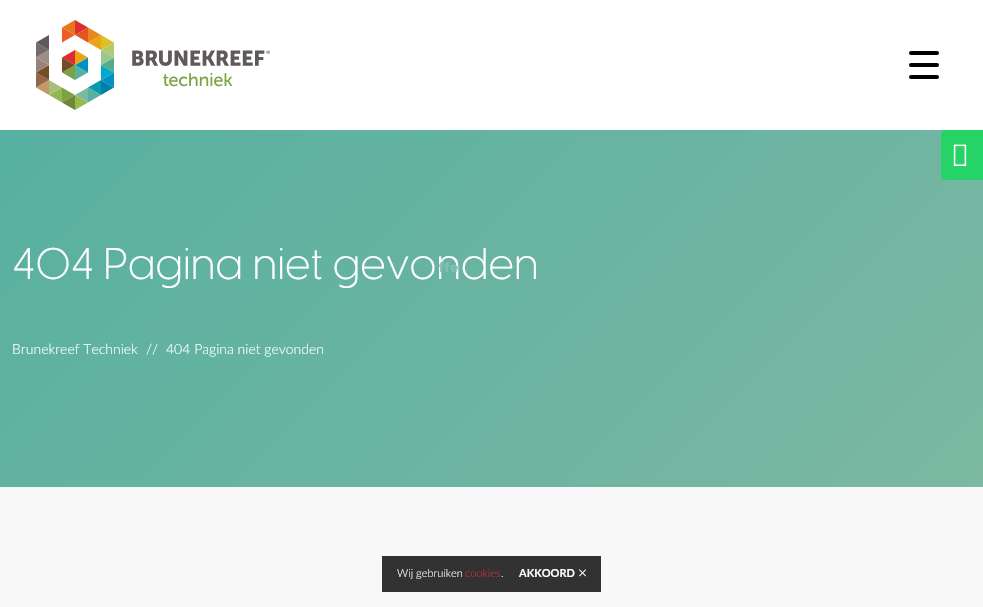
void draw(SkCanvas* canvas) {
    SkPaint paint;
    paint.setAntiAlias(true);
    canvas->clear(0xFFFFFFFF);
    {
        const SkColor colors[] = {0xFF57B0A1, 0xFF7CB8A2};
        const float stops[] = {0, 1};
        const SkPoint ends[] = {{156, -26}, {827, 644}};
        paint.setShader(SkGradientShader::MakeLinear(ends, colors, stops, 2, SkTileMode::kClamp));
        paint.setAlpha(255);
    }
    canvas->drawRect(SkRect::MakeXYWH(0, 130, 983, 357), paint);
    paint.setShader(nullptr);
    paint.setColor(0xFF25D366);
    canvas->drawPath(SkPathBuilder().moveTo(945, 130).lineTo(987, 130).lineTo(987, 180).lineTo(945, 180).cubicTo(943, 180, 941, 178, 941, 176).lineTo(941, 134).cubicTo(941, 132, 943, 130, 945, 130).close().detach(), paint);
    canvas->drawImageRect(SkImages::DeferredFromEncodedData(SkData::MakeFromFileName("img1.png")), SkRect::MakeXYWH(953, 144, 14, 22), SkSamplingOptions());
    SkFont font1(fontMgr->matchFamilyStyle("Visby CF", SkFontStyle(300, SkFontStyle::kNormal_Width, SkFontStyle::kUpright_Slant)), 43.5f);
    font1.setSubpixel(true);
    paint.setColor(0xFFFFFFFF);
    canvas->drawString("404 Pagina niet gevonden", 12, 279, font1, paint);
    SkFont font2(fontMgr->matchFamilyStyle("Lato", SkFontStyle(300, SkFontStyle::kNormal_Width, SkFontStyle::kUpright_Slant)), 14);
    font2.setSubpixel(true);
    canvas->drawString("Brunekreef Techniek", 12, 354, font2, paint);
    canvas->drawString("//", 146, 354, font2, paint);
    canvas->drawString("404 Pagina niet gevonden", 166, 354, font2, paint);
    canvas->drawImageRect(SkImages::DeferredFromEncodedData(SkData::MakeFromFileName("img2.png")), SkRect::MakeXYWH(36, 20, 234, 90), SkSamplingOptions());
    paint.setColor(0xFF000000);
    canvas->drawRoundRect(SkRect::MakeXYWH(909, 51, 30, 4), 2, 2, paint);
    canvas->drawRoundRect(SkRect::MakeXYWH(909, 63, 30, 4), 2, 2, paint);
    canvas->drawRoundRect(SkRect::MakeXYWH(909, 75, 30, 4), 2, 2, paint);
    SkFont font3(fontMgr->matchFamilyStyle("Visby CF", SkFontStyle(800, SkFontStyle::kNormal_Width, SkFontStyle::kUpright_Slant)), 14);
    font3.setSubpixel(true);
    paint.setColor(0xFF80C0B0);
    canvas->drawString("ffe", 439, 272, font3, paint);
    paint.setColor(0xFFF8F8F8);
    canvas->drawRect(SkRect::MakeXYWH(0, 487, 983, 120), paint);
    paint.setColor(0xFF323232);
    canvas->drawRect(SkRect::MakeXYWH(382, 556, 219, 36), paint);
    SkFont font4(fontMgr->matchFamilyStyle("Lato", SkFontStyle(300, SkFontStyle::kNormal_Width, SkFontStyle::kUpright_Slant)), 11);
    font4.setSubpixel(true);
    paint.setColor(0xFFFFFFFF);
    canvas->drawString("Wij gebruiken", 397, 577, font4, paint);
    paint.setColor(0xFFDF2D2F);
    canvas->drawString("cookies", 465, 577, font4, paint);
    paint.setColor(0xFFFFFFFF);
    canvas->drawString(".", 501, 577, font4, paint);
    SkFont font5(fontMgr->matchFamilyStyle("Lato", SkFontStyle::Bold()), 11);
    font5.setSubpixel(true);
    canvas->drawString("AKKOORD", 519, 577, font5, paint);
    canvas->drawImageRect(SkImages::DeferredFromEncodedData(SkData::MakeFromFileName("img3.png")), SkRect::MakeXYWH(579, 569, 7, 8), SkSamplingOptions());
}
